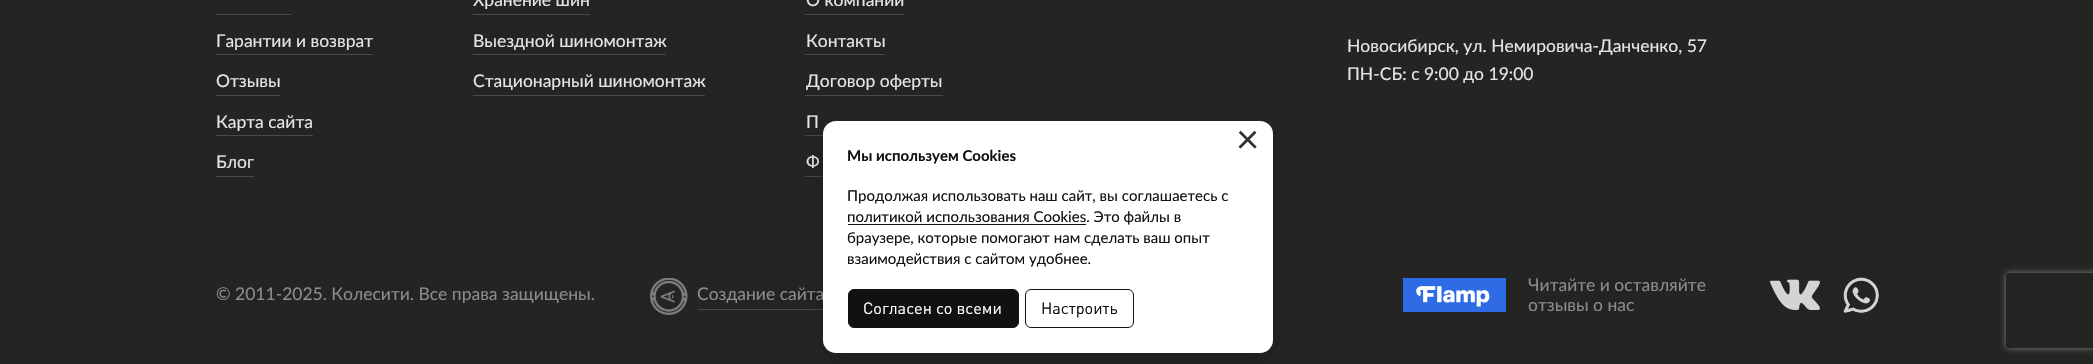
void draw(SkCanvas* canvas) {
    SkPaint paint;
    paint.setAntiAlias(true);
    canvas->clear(0xFF242422);
    paint.setColor(0xFF47484B);
    canvas->drawRect(SkRect::MakeXYWH(216, 14, 75, 1), paint);
    SkFont font1(fontMgr->matchFamilyStyle("Lato", SkFontStyle::Normal()), 17.5f);
    font1.setSubpixel(true);
    paint.setColor(0xFFE4E5E6);
    canvas->drawString("Гарантии и возврат", 216, 47, font1, paint);
    paint.setColor(0xFF47484B);
    canvas->drawRect(SkRect::MakeXYWH(216, 54, 157, 1), paint);
    paint.setColor(0xFFE4E5E6);
    canvas->drawString("Отзывы", 216, 87, font1, paint);
    paint.setColor(0xFF47484B);
    canvas->drawRect(SkRect::MakeXYWH(216, 95, 64, 1), paint);
    paint.setColor(0xFFE4E5E6);
    canvas->drawString("Карта сайта", 216, 128, font1, paint);
    paint.setColor(0xFF47484B);
    canvas->drawRect(SkRect::MakeXYWH(216, 135, 97, 1), paint);
    paint.setColor(0xFFE4E5E6);
    canvas->drawString("Блог", 216, 168, font1, paint);
    paint.setColor(0xFF47484B);
    canvas->drawRect(SkRect::MakeXYWH(216, 176, 38, 1), paint);
    paint.setColor(0xFFE4E5E6);
    canvas->drawString("Хранение шин", 473, 6, font1, paint);
    paint.setColor(0xFF47484B);
    canvas->drawRect(SkRect::MakeXYWH(473, 14, 117, 1), paint);
    paint.setColor(0xFFE4E5E6);
    canvas->drawString("Выездной шиномонтаж", 473, 47, font1, paint);
    paint.setColor(0xFF47484B);
    canvas->drawRect(SkRect::MakeXYWH(473, 54, 193, 1), paint);
    paint.setColor(0xFFE4E5E6);
    canvas->drawString("Стационарный шиномонтаж", 473, 87, font1, paint);
    paint.setColor(0xFF47484B);
    canvas->drawRect(SkRect::MakeXYWH(473, 95, 232, 1), paint);
    paint.setColor(0xFFE4E5E6);
    canvas->drawString("О компании", 806, 6, font1, paint);
    paint.setColor(0xFF47484B);
    canvas->drawRect(SkRect::MakeXYWH(805, 14, 99, 1), paint);
    paint.setColor(0xFFE4E5E6);
    canvas->drawString("Контакты", 806, 47, font1, paint);
    paint.setColor(0xFF47484B);
    canvas->drawRect(SkRect::MakeXYWH(805, 54, 80, 1), paint);
    paint.setColor(0xFFE4E5E6);
    canvas->drawString("Договор оферты", 806, 87, font1, paint);
    paint.setColor(0xFF47484B);
    canvas->drawRect(SkRect::MakeXYWH(805, 95, 138, 1), paint);
    paint.setColor(0xFFE4E5E6);
    canvas->drawString("П", 806, 128, font1, paint);
    paint.setColor(0xFF47484B);
    canvas->drawRect(SkRect::MakeXYWH(805, 135, 18, 1), paint);
    paint.setColor(0xFFE4E5E6);
    canvas->drawString("Ф", 806, 168, font1, paint);
    paint.setColor(0xFF47484B);
    canvas->drawRect(SkRect::MakeXYWH(805, 176, 18, 1), paint);
    paint.setColor(0xFFE4E5E6);
    canvas->drawString("Новосибирск, ул. Немировича-Данченко, 57", 1347, 52, font1, paint);
    canvas->drawString("ПН-СБ: с 9:00 до 19:00", 1347, 80, font1, paint);
    paint.setColor(0xFF8B8C90);
    canvas->drawString("© 2011-2025. Колесити. Все права защищены.", 216, 300, font1, paint);
    paint.setColor(0xFF47484B);
    canvas->drawRect(SkRect::MakeXYWH(698, 309, 128, 1), paint);
    canvas->drawImageRect(SkImages::DeferredFromEncodedData(SkData::MakeFromFileName("img1.png")), SkRect::MakeXYWH(650, 278, 38, 37), SkSamplingOptions());
    paint.setColor(0xFF8B8C90);
    canvas->drawString("Создание сайта", 697, 300, font1, paint);
    canvas->drawImageRect(SkImages::DeferredFromEncodedData(SkData::MakeFromFileName("img2.png")), SkRect::MakeXYWH(1403, 278, 103, 34), SkSamplingOptions());
    canvas->drawString("Читайте и оставляйте", 1528, 291, font1, paint);
    canvas->drawString("отзывы о нас", 1528, 311, font1, paint);
    canvas->drawImageRect(SkImages::DeferredFromEncodedData(SkData::MakeFromFileName("img3.png")), SkRect::MakeXYWH(1770, 279, 50, 31), SkSamplingOptions());
    canvas->drawImageRect(SkImages::DeferredFromEncodedData(SkData::MakeFromFileName("img4.png")), SkRect::MakeXYWH(1843, 277, 36, 36), SkSamplingOptions());
    paint.setColor(0x33000000);
    paint.setMaskFilter(SkMaskFilter::MakeBlur(kNormal_SkBlurStyle, 9.5f));
    canvas->drawRoundRect(SkRect::MakeXYWH(823, 128, 450, 231), 13, 13, paint);
    paint.setMaskFilter(nullptr);
    paint.setColor(0xFFFFFFFF);
    canvas->drawRoundRect(SkRect::MakeXYWH(823, 121, 450, 232), 13, 13, paint);
    SkFont font2(fontMgr->matchFamilyStyle("Lato", SkFontStyle::Normal()), 40);
    font2.setSubpixel(true);
    paint.setColor(0xFF333333);
    canvas->drawString("×", 1236, 153, font2, paint);
    SkFont font3(fontMgr->matchFamilyStyle("Lato", SkFontStyle::Bold()), 15);
    font3.setSubpixel(true);
    paint.setColor(0xFF111111);
    canvas->drawString("Мы используем Cookies", 847, 161, font3, paint);
    SkFont font4(fontMgr->matchFamilyStyle("Lato", SkFontStyle::Normal()), 15);
    font4.setSubpixel(true);
    canvas->drawString("Продолжая использовать наш сайт, вы соглашаетесь с", 847, 201, font4, paint);
    canvas->drawRect(SkRect::MakeXYWH(848, 224, 238, 1), paint);
    canvas->drawString("политикой использования Cookies. Это файлы в", 847, 222, font4, paint);
    canvas->drawString("браузере, которые помогают нам сделать ваш опыт", 847, 243, font4, paint);
    canvas->drawString("взаимодействия с сайтом удобнее.", 847, 264, font4, paint);
    canvas->drawRoundRect(SkRect::MakeXYWH(848.5f, 289.5f, 170, 38), 5.5f, 5.5f, paint);
    paint.setStyle(SkPaint::kStroke_Style);
    paint.setStrokeWidth(1);
    canvas->drawRoundRect(SkRect::MakeXYWH(848.5f, 289.5f, 170, 38), 5.5f, 5.5f, paint);
    SkFont font5(fontMgr->matchFamilyStyle("DIN", SkFontStyle::Normal()), 16.25f);
    font5.setSubpixel(true);
    paint.setStyle(SkPaint::kFill_Style);
    paint.setColor(0xFFFFFFFF);
    canvas->drawString("Согласен со всеми", 863, 314, font5, paint);
    paint.setStyle(SkPaint::kStroke_Style);
    paint.setColor(0xFF111111);
    canvas->drawRoundRect(SkRect::MakeXYWH(1025.5f, 289.5f, 108, 38), 5.5f, 5.5f, paint);
    paint.setStyle(SkPaint::kFill_Style);
    canvas->drawString("Настроить", 1041, 314, font5, paint);
    canvas->save();
    canvas->clipPath(SkPathBuilder(SkPathFillType::kEvenOdd).moveTo(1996, 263).lineTo(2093, 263).lineTo(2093, 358).lineTo(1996, 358).close().moveTo(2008.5f, 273).lineTo(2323.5f, 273).cubicTo(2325, 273, 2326, 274, 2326, 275.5f).lineTo(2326, 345.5f).cubicTo(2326, 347, 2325, 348, 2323.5f, 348).lineTo(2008.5f, 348).cubicTo(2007, 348, 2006, 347, 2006, 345.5f).lineTo(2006, 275.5f).cubicTo(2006, 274, 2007, 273, 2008.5f, 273).close().detach(), true);
    paint.setColor(0xFF808080);
    paint.setMaskFilter(SkMaskFilter::MakeBlur(kNormal_SkBlurStyle, 3));
    canvas->drawRoundRect(SkRect::MakeXYWH(2006, 273, 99, 75), 2.5f, 2.5f, paint);
    paint.setMaskFilter(nullptr);
    canvas->restore();
}
